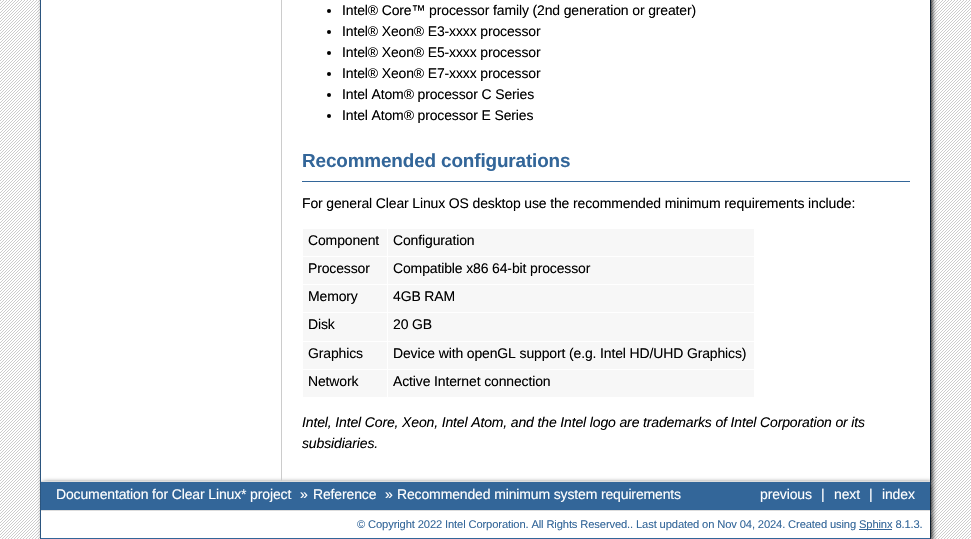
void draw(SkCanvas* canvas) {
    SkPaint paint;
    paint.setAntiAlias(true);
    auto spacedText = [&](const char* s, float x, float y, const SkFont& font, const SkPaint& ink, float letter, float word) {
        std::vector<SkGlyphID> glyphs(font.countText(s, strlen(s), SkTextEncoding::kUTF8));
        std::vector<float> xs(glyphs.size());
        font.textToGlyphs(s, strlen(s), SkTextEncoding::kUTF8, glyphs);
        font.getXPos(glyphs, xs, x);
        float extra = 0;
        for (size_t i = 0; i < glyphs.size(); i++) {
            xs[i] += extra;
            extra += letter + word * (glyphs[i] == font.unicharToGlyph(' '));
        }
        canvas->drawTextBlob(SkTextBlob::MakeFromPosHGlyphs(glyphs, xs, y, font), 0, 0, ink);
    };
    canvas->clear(0xFFFFFFFF);
    canvas->drawImageRect(SkImages::DeferredFromEncodedData(SkData::MakeFromFileName("img1.png")), SkRect::MakeXYWH(0, 0, 971, 539), SkSamplingOptions());
    paint.setColor(0xFF336699);
    canvas->drawRect(SkRect::MakeXYWH(930, 0, 1, 539), paint);
    canvas->drawRect(SkRect::MakeXYWH(40, 0, 1, 539), paint);
    paint.setColor(0xFF000000);
    paint.setMaskFilter(SkMaskFilter::MakeBlur(kNormal_SkBlurStyle, 2.5f));
    canvas->drawRect(SkRect::MakeXYWH(43, -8, 889, 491), paint);
    paint.setMaskFilter(nullptr);
    paint.setColor(0xFFFFFFFF);
    canvas->drawRect(SkRect::MakeXYWH(41, 0, 889, 481), paint);
    paint.setColor(0xFF000000);
    paint.setMaskFilter(SkMaskFilter::MakeBlur(kNormal_SkBlurStyle, 2.5f));
    canvas->drawRect(SkRect::MakeXYWH(43, 483, 889, 30), paint);
    paint.setMaskFilter(nullptr);
    paint.setColor(0xFFCCCCCC);
    canvas->drawRect(SkRect::MakeXYWH(281, 0, 1, 481), paint);
    paint.setColor(0xFF000000);
    canvas->drawCircle(329, 11, 2, paint);
    SkFont font1(fontMgr->matchFamilyStyle("Liberation Sans", SkFontStyle::Normal()), 14);
    font1.setSubpixel(true);
    spacedText("Intel® Core™ processor family (2nd generation or greater)", 342, 15, font1, paint, -0.14f, 0);
    canvas->drawCircle(329, 32, 2, paint);
    spacedText("Intel® Xeon® E3-xxxx processor", 342, 36, font1, paint, -0.14f, 0);
    canvas->drawCircle(329, 53, 2, paint);
    spacedText("Intel® Xeon® E5-xxxx processor", 342, 57, font1, paint, -0.14f, 0);
    canvas->drawCircle(329, 74, 2, paint);
    spacedText("Intel® Xeon® E7-xxxx processor", 342, 78, font1, paint, -0.14f, 0);
    canvas->drawCircle(329, 95, 2, paint);
    spacedText("Intel Atom® processor C Series", 342, 99, font1, paint, -0.14f, 0);
    canvas->drawCircle(329, 116, 2, paint);
    spacedText("Intel Atom® processor E Series", 342, 120, font1, paint, -0.14f, 0);
    paint.setColor(0xFF336699);
    canvas->drawRect(SkRect::MakeXYWH(302, 181, 608, 1), paint);
    SkFont font2(fontMgr->matchFamilyStyle("Liberation Sans", SkFontStyle::Bold()), 18.9f);
    font2.setSubpixel(true);
    spacedText("Recommended configurations", 302, 167, font2, paint, -0.14f, 0);
    paint.setColor(0xFF000000);
    spacedText("For general Clear Linux OS desktop use the recommended minimum requirements include:", 302, 208, font1, paint, -0.14f, 0);
    paint.setColor(0xFFF7F7F7);
    canvas->drawRect(SkRect::MakeXYWH(303, 229, 451, 168), paint);
    paint.setColor(0xFFFFFFFF);
    canvas->drawRect(SkRect::MakeXYWH(387, 369, 1, 29), paint);
    canvas->drawRect(SkRect::MakeXYWH(387, 369, 368, 1), paint);
    canvas->drawRect(SkRect::MakeXYWH(387, 341, 1, 29), paint);
    canvas->drawRect(SkRect::MakeXYWH(387, 341, 368, 1), paint);
    canvas->drawRect(SkRect::MakeXYWH(387, 312, 1, 30), paint);
    canvas->drawRect(SkRect::MakeXYWH(387, 312, 368, 1), paint);
    canvas->drawRect(SkRect::MakeXYWH(387, 284, 1, 29), paint);
    canvas->drawRect(SkRect::MakeXYWH(387, 284, 368, 1), paint);
    canvas->drawRect(SkRect::MakeXYWH(387, 256, 1, 29), paint);
    canvas->drawRect(SkRect::MakeXYWH(387, 256, 368, 1), paint);
    canvas->drawRect(SkRect::MakeXYWH(387, 228, 1, 29), paint);
    canvas->drawRect(SkRect::MakeXYWH(302, 256, 86, 1), paint);
    paint.setColor(0xFF000000);
    spacedText("Component", 308, 245, font1, paint, -0.14f, 0);
    spacedText("Configuration", 393, 245, font1, paint, -0.14f, 0);
    paint.setColor(0xFFFFFFFF);
    canvas->drawRect(SkRect::MakeXYWH(302, 284, 86, 1), paint);
    paint.setColor(0xFF000000);
    spacedText("Processor", 308, 273, font1, paint, -0.14f, 0);
    spacedText("Compatible x86 64-bit processor", 393, 273, font1, paint, -0.14f, 0);
    paint.setColor(0xFFFFFFFF);
    canvas->drawRect(SkRect::MakeXYWH(302, 312, 86, 1), paint);
    paint.setColor(0xFF000000);
    spacedText("Memory", 308, 301, font1, paint, -0.14f, 0);
    spacedText("4GB RAM", 393, 301, font1, paint, -0.14f, 0);
    paint.setColor(0xFFFFFFFF);
    canvas->drawRect(SkRect::MakeXYWH(302, 341, 86, 1), paint);
    paint.setColor(0xFF000000);
    spacedText("Disk", 308, 329, font1, paint, -0.14f, 0);
    spacedText("20 GB", 393, 329, font1, paint, -0.14f, 0);
    paint.setColor(0xFFFFFFFF);
    canvas->drawRect(SkRect::MakeXYWH(302, 369, 86, 1), paint);
    paint.setColor(0xFF000000);
    spacedText("Graphics", 308, 358, font1, paint, -0.14f, 0);
    spacedText("Device with openGL support (e.g. Intel HD/UHD Graphics)", 393, 358, font1, paint, -0.14f, 0);
    spacedText("Network", 308, 386, font1, paint, -0.14f, 0);
    spacedText("Active Internet connection", 393, 386, font1, paint, -0.14f, 0);
    SkFont font3(fontMgr->matchFamilyStyle("Liberation Sans", SkFontStyle::Italic()), 14);
    font3.setSubpixel(true);
    spacedText("Intel, Intel Core, Xeon, Intel Atom, and the Intel logo are trademarks of Intel Corporation or its", 302, 427, font3, paint, -0.14f, 0);
    spacedText("subsidiaries.", 302, 448, font3, paint, -0.14f, 0);
    paint.setMaskFilter(SkMaskFilter::MakeBlur(kNormal_SkBlurStyle, 2.5f));
    canvas->drawRect(SkRect::MakeXYWH(43, 513, 889, 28), paint);
    paint.setMaskFilter(nullptr);
    paint.setColor(0xFF336699);
    canvas->drawRect(SkRect::MakeXYWH(41, 482, 889, 28), paint);
    paint.setColor(0xFFDDDDDD);
    canvas->drawRect(SkRect::MakeXYWH(41, 481, 889, 1), paint);
    canvas->drawRect(SkRect::MakeXYWH(41, 510, 889, 1), paint);
    paint.setColor(0xFFFFFFFF);
    spacedText("Documentation for Clear Linux* project", 56, 499, font1, paint, -0.14f, 0);
    spacedText("»", 300, 499, font1, paint, -0.14f, 0);
    spacedText("Reference", 313, 499, font1, paint, -0.14f, 0);
    spacedText("»", 385, 499, font1, paint, -0.14f, 0);
    spacedText("Recommended minimum system requirements", 397, 499, font1, paint, -0.14f, 0);
    spacedText("previous", 760, 499, font1, paint, -0.14f, 0);
    spacedText("|", 821, 499, font1, paint, -0.14f, 0);
    spacedText("next", 834, 499, font1, paint, -0.14f, 0);
    spacedText("|", 869, 499, font1, paint, -0.14f, 0);
    spacedText("index", 882, 499, font1, paint, -0.14f, 0);
    canvas->drawRect(SkRect::MakeXYWH(41, 511, 889, 27), paint);
    paint.setColor(0xFF336699);
    canvas->drawRect(SkRect::MakeXYWH(41, 538, 889, 1), paint);
    SkFont font4(fontMgr->matchFamilyStyle("Liberation Sans", SkFontStyle::Normal()), 11.2f);
    font4.setSubpixel(true);
    spacedText("© Copyright 2022 Intel Corporation. All Rights Reserved.. Last updated on Nov 04, 2024. Created using", 357, 528, font4, paint, -0.14f, 0);
    canvas->drawRect(SkRect::MakeXYWH(859, 529, 33, 1), paint);
    spacedText("Sphinx 8.1.3.", 859, 528, font4, paint, -0.14f, 0);
}
